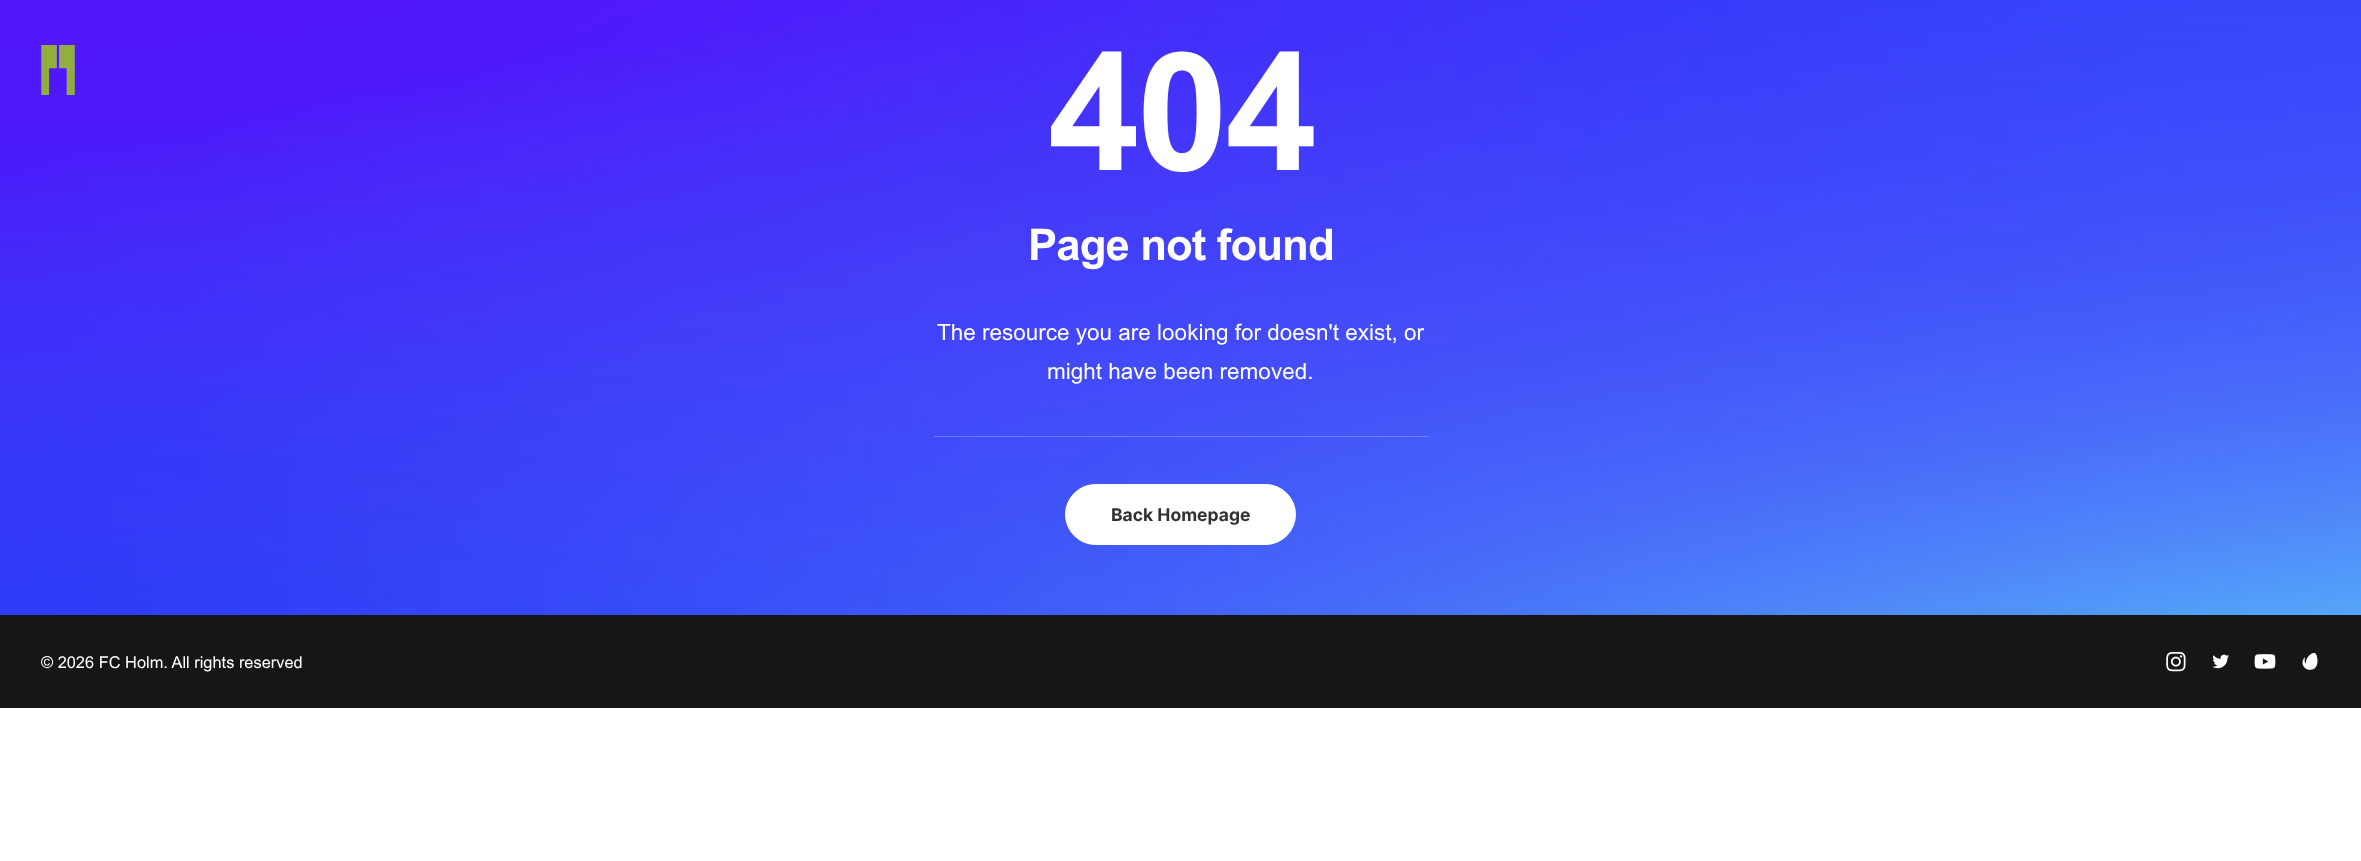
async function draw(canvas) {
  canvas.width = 2361
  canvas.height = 861
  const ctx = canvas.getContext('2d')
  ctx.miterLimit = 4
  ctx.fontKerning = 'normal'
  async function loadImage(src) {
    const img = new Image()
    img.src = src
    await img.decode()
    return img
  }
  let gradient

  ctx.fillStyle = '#fff'
  ctx.fillRect(0, 0, 2361, 861)
  gradient = ctx.createLinearGradient(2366, 308, -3.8, 307)
  gradient.addColorStop(0.09, '#115cfa')
  gradient.addColorStop(0.91, '#053df5')
  ctx.fillStyle = gradient
  ctx.fillRect(0, 0, 2361, 615)
  ctx.drawImage(await loadImage('image1.png'), 0, 0, 2361, 615)
  ctx.drawImage(await loadImage('image0.png'), 41, 45, 34, 50)
  ctx.letterSpacing = '-3px'
  ctx.font = 'bold 165px Arial'
  ctx.fillStyle = '#fff'
  ctx.fillText('404', 1048, 170)
  ctx.letterSpacing = '-0.9px'
  ctx.font = 'bold 43.75px Arial'
  ctx.fillText('Page not found', 1028, 260)
  ctx.letterSpacing = '0px'
  ctx.font = '22.5px Arial'
  ctx.fillText('The resource you are looking for doesn\'t exist, or', 937, 340)
  ctx.fillText('might have been removed.', 1047, 379)
  ctx.fillStyle = '#ffffff40'
  ctx.fillRect(934, 436, 495, 1)
  ctx.fillStyle = '#fff'
  ctx.beginPath()
  ctx.roundRect(1065.5, 484.5, 230, 60, 30)
  ctx.fill()
  ctx.strokeStyle = '#fff'
  ctx.stroke()
  ctx.font = 'bold 17.5px Inter'
  ctx.fillStyle = '#303133'
  ctx.fillText('Back Homepage', 1111, 521)
  ctx.fillStyle = '#141618'
  ctx.fillRect(0, 615, 2361, 93)
  ctx.font = '16.4px Arial'
  ctx.fillStyle = '#fff'
  ctx.fillText('© 2026 FC Holm. All rights reserved', 41, 668)
  ctx.drawImage(await loadImage('image2.png'), 2166, 651, 20, 21)
  ctx.drawImage(await loadImage('image3.png'), 2212, 654, 17, 15)
  ctx.drawImage(await loadImage('image4.png'), 2254, 654, 22, 15)
  ctx.drawImage(await loadImage('image5.png'), 2302, 652, 16, 18)
}

draw(document.querySelector('canvas'))
